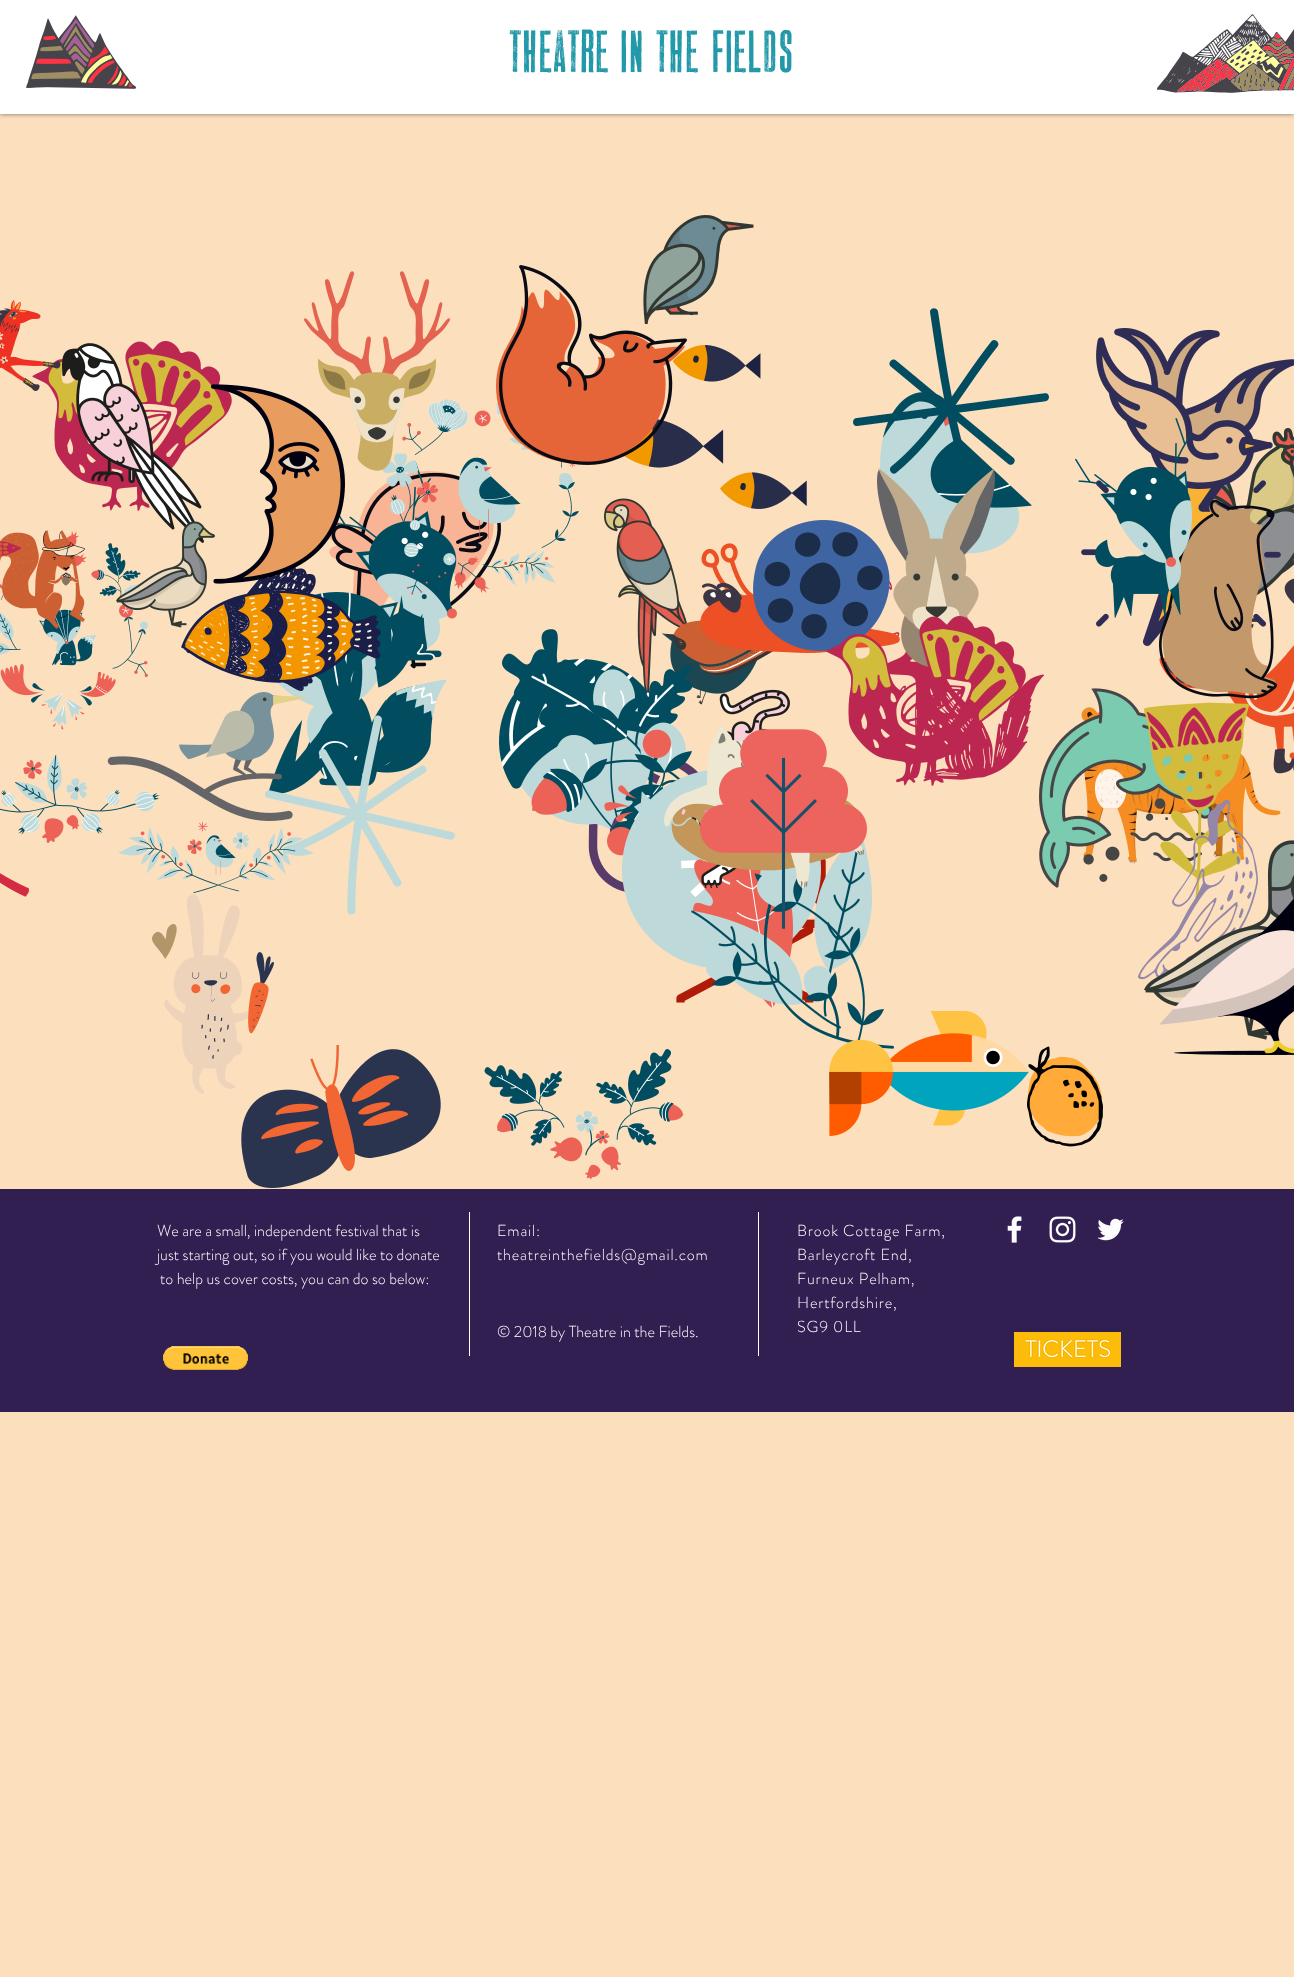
async function draw(canvas) {
  canvas.width = 1294
  canvas.height = 1977
  const ctx = canvas.getContext('2d')
  ctx.miterLimit = 4
  ctx.fontKerning = 'normal'
  async function loadImage(src) {
    const img = new Image()
    img.src = src
    await img.decode()
    return img
  }

  ctx.fillStyle = '#fce0be'
  ctx.fillRect(0, 0, 1294, 1977)
  ctx.fillStyle = '#00000080'
  ctx.filter = 'blur(2.5px)'
  ctx.beginPath()
  ctx.rect(0, 0, 1294, 114)
  ctx.fill()
  ctx.filter = 'none'
  ctx.fillStyle = '#fff'
  ctx.fillRect(0, 0, 1294, 114)
  ctx.drawImage(await loadImage('image0.png'), 26, 15, 110, 74)
  ctx.font = '60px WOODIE'
  ctx.fillStyle = '#2299a9'
  ctx.fillText('THEATRE IN THE FIELDS', 509, 72)
  ctx.drawImage(await loadImage('image1.png'), 1157, 14, 137, 79)
  ctx.drawImage(await loadImage('image3.png'), 32, 341, 200, 170)
  ctx.drawImage(await loadImage('image2.png'), 0, 300, 61, 91)
  ctx.drawImage(await loadImage('image18.png'), 329, 471, 172, 199)
  ctx.drawImage(await loadImage('image16.png'), 336, 461, 121, 200)
  ctx.drawImage(await loadImage('image11.png'), 382, 399, 197, 196)
  ctx.drawImage(await loadImage('image4.png'), 304, 271, 146, 200)
  ctx.drawImage(await loadImage('image12.png'), 621, 345, 186, 164)
  ctx.drawImage(await loadImage('image5.png'), 496, 265, 191, 200)
  ctx.drawImage(await loadImage('image6.png'), 643, 215, 111, 109)
  ctx.drawImage(await loadImage('image13.png'), 880, 392, 152, 162)
  ctx.drawImage(await loadImage('image7.png'), 853, 308, 196, 184)
  ctx.drawImage(await loadImage('image15.png'), 1211, 428, 83, 200)
  ctx.drawImage(await loadImage('image29.png'), 1159, 578, 135, 196)
  ctx.drawImage(await loadImage('image20.png'), 1081, 480, 200, 166)
  ctx.drawImage(await loadImage('image8.png'), 1096, 328, 198, 161)
  ctx.drawImage(await loadImage('image25.png'), 0, 531, 148, 199)
  ctx.drawImage(await loadImage('image9.png'), 62, 343, 142, 200)
  ctx.drawImage(await loadImage('image30.png'), 257, 592, 190, 194)
  ctx.drawImage(await loadImage('image31.png'), 269, 595, 154, 199)
  ctx.drawImage(await loadImage('image27.png'), 181, 567, 200, 124)
  ctx.drawImage(await loadImage('image10.png'), 211, 384, 134, 200)
  ctx.drawImage(await loadImage('image24.png'), 1159, 499, 118, 200)
  ctx.drawImage(await loadImage('image14.png'), 1075, 418, 117, 200)
  ctx.drawImage(await loadImage('image28.png'), 887, 581, 157, 199)
  ctx.drawImage(await loadImage('image17.png'), 877, 468, 118, 199)
  ctx.drawImage(await loadImage('image19.png'), 604, 498, 83, 196)
  ctx.drawImage(await loadImage('image21.png'), 0, 530, 85, 99)
  ctx.drawImage(await loadImage('image22.png'), 116, 521, 99, 107)
  ctx.drawImage(await loadImage('image33.png'), 662, 620, 112, 85)
  ctx.drawImage(await loadImage('image23.png'), 700, 520, 200, 133)
  ctx.drawImage(await loadImage('image26.png'), 0, 541, 22, 15)
  ctx.drawImage(await loadImage('image46.png'), 588, 762, 111, 130)
  ctx.drawImage(await loadImage('image32.png'), 499, 629, 152, 200)
  ctx.drawImage(await loadImage('image35.png'), 502, 649, 191, 182)
  ctx.drawImage(await loadImage('image37.png'), 550, 669, 142, 161)
  ctx.drawImage(await loadImage('image42.png'), 607, 729, 64, 127)
  ctx.drawImage(await loadImage('image50.png'), 604, 785, 47, 38)
  ctx.drawImage(await loadImage('image55.png'), 676, 859, 150, 144)
  ctx.drawImage(await loadImage('image48.png'), 622, 770, 199, 198)
  ctx.drawImage(await loadImage('image51.png'), 693, 824, 40, 98)
  ctx.drawImage(await loadImage('image58.png'), 730, 868, 63, 140)
  ctx.drawImage(await loadImage('image53.png'), 691, 840, 181, 189)
  ctx.drawImage(await loadImage('image56.png'), 706, 866, 188, 183)
  ctx.drawImage(await loadImage('image60.png'), 757, 875, 127, 166)
  ctx.drawImage(await loadImage('image38.png'), 691, 689, 99, 200)
  ctx.drawImage(await loadImage('image43.png'), 664, 727, 200, 161)
  ctx.drawImage(await loadImage('image47.png'), 700, 729, 167, 200)
  ctx.drawImage(await loadImage('image34.png'), 826, 616, 200, 170)
  ctx.drawImage(await loadImage('image41.png'), 265, 715, 190, 200)
  ctx.drawImage(await loadImage('image36.png'), 107, 692, 199, 129)
  ctx.drawImage(await loadImage('image44.png'), 1081, 707, 200, 157)
  ctx.drawImage(await loadImage('image39.png'), 1039, 688, 186, 200)
  ctx.drawImage(await loadImage('image40.png'), 1144, 702, 105, 197)
  ctx.drawImage(await loadImage('image45.png'), 0, 755, 160, 88)
  ctx.drawImage(await loadImage('image49.png'), 118, 822, 196, 71)
  ctx.drawImage(await loadImage('image52.png'), 1138, 800, 120, 180)
  ctx.drawImage(await loadImage('image54.png'), 1144, 840, 150, 200)
  ctx.drawImage(await loadImage('image57.png'), 0, 873, 29, 24)
  ctx.drawImage(await loadImage('image62.png'), 241, 1045, 200, 143)
  ctx.drawImage(await loadImage('image59.png'), 152, 894, 122, 200)
  ctx.drawImage(await loadImage('image61.png'), 1159, 898, 135, 157)
  ctx.drawImage(await loadImage('image63.png'), 484, 1049, 200, 130)
  ctx.drawImage(await loadImage('image64.png'), 829, 1011, 200, 125)
  ctx.drawImage(await loadImage('image65.png'), 1027, 1046, 76, 101)
  ctx.fillStyle = '#311f52'
  ctx.fillRect(0, 1189, 1294, 223)
  ctx.font = '300 16px "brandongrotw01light"'
  ctx.fillStyle = '#fff'
  ctx.fillText('We are a small, independent festival that is', 157, 1236)
  ctx.fillText('just starting out, so if you would like to donate', 157, 1260)
  ctx.fillText('to help us cover costs, you can do so below:', 160, 1284)
  ctx.fillRect(469, 1212, 1, 144)
  ctx.letterSpacing = '0.8px'
  ctx.fillText('Email:', 497, 1236)
  ctx.fillText('theatreinthefields@gmail.com', 497, 1260)
  ctx.fillRect(758, 1212, 1, 144)
  ctx.fillText('Brook Cottage Farm,', 797, 1236)
  ctx.fillText('Barleycroft End,', 797, 1260)
  ctx.fillText('Furneux Pelham,', 797, 1284)
  ctx.fillText('Hertfordshire,', 797, 1308)
  ctx.fillText('SG9 0LL', 797, 1332)
  ctx.drawImage(await loadImage('image66.png'), 1007, 1216, 15, 27)
  ctx.drawImage(await loadImage('image67.png'), 1049, 1216, 27, 27)
  ctx.drawImage(await loadImage('image68.png'), 1097, 1218, 27, 23)
  ctx.drawImage(await loadImage('image69.png'), 163, 1346, 85, 24)
  ctx.letterSpacing = '0px'
  ctx.fillText('© 2018 by Theatre in the Fields', 497, 1337)
  ctx.letterSpacing = '0.8px'
  ctx.fillText('.', 695, 1337)
  ctx.drawImage(await loadImage('image70.png'), 1014, 1332, 107, 35)
}

draw(document.querySelector('canvas'))
